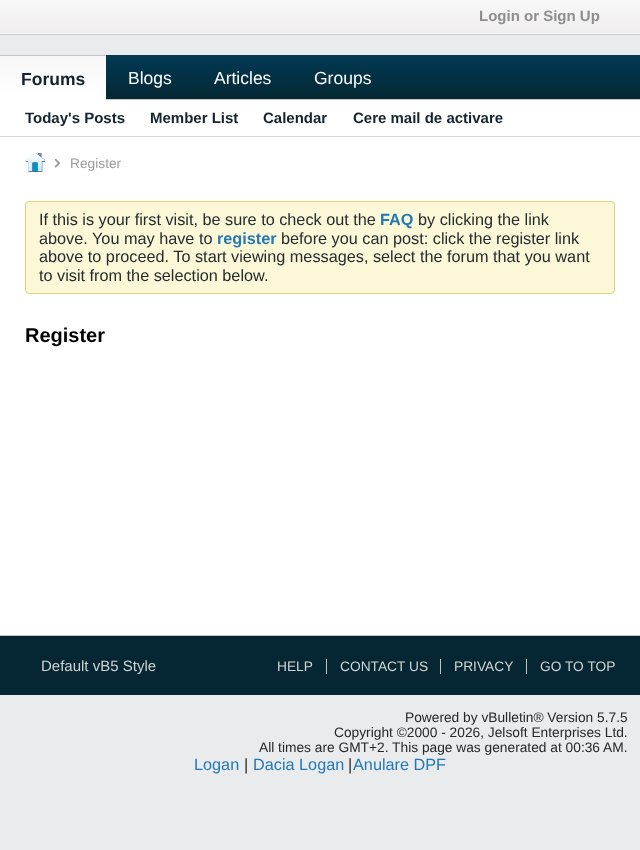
async function draw(canvas) {
  canvas.width = 640
  canvas.height = 850
  const ctx = canvas.getContext('2d')
  ctx.miterLimit = 4
  ctx.fontKerning = 'normal'
  async function loadImage(src) {
    const img = new Image()
    img.src = src
    await img.decode()
    return img
  }
  let gradient

  ctx.fillStyle = '#eaebec'
  ctx.fillRect(0, 0, 640, 850)
  gradient = ctx.createLinearGradient(320, 0, 320, 35)
  gradient.addColorStop(0, '#f8f8f8')
  gradient.addColorStop(1, '#efedee')
  ctx.fillStyle = gradient
  ctx.fillRect(0, 0, 640, 33)
  ctx.font = 'bold 15px Liberation Sans'
  ctx.fillStyle = '#8e8e8e'
  ctx.fillText('Login or Sign Up', 479, 21)
  ctx.fillStyle = '#fafafa'
  ctx.fillRect(0, 33, 640, 1)
  ctx.fillStyle = '#c7c8c9'
  ctx.fillRect(0, 34, 640, 1)
  gradient = ctx.createLinearGradient(320, 55, 320, 99)
  gradient.addColorStop(0, '#013a54')
  gradient.addColorStop(1, '#052733')
  ctx.fillStyle = gradient
  ctx.fillRect(0, 55, 640, 44)
  ctx.fillStyle = '#c4c7c8'
  ctx.fillRect(106, 99, 534, 1)
  gradient = ctx.createLinearGradient(53, 12, 53, 56)
  gradient.addColorStop(0, '#f7f7f7')
  gradient.addColorStop(1, '#fff')
  ctx.fillStyle = gradient
  ctx.beginPath()
  ctx.roundRect(0, 55, 106, 1, [1, 1, 0, 0])
  ctx.fill()
  gradient = ctx.createLinearGradient(53, 56, 53, 100)
  gradient.addColorStop(0, '#f7f7f7')
  gradient.addColorStop(1, '#fff')
  ctx.fillStyle = gradient
  ctx.fillRect(0, 56, 106, 44)
  ctx.fillStyle = '#c4c7c8'
  ctx.fillRect(1, 55, 105, 1)
  ctx.font = 'bold 17.5px Liberation Sans'
  ctx.fillStyle = '#13242f'
  ctx.fillText('Forums', 21, 85)
  ctx.font = '17.5px Liberation Sans'
  ctx.fillStyle = '#fff'
  ctx.fillText('Blogs', 128, 84)
  ctx.fillText('Articles', 214, 84)
  ctx.fillText('Groups', 314, 84)
  ctx.fillRect(0, 100, 640, 535)
  ctx.fillStyle = '#d3d5d6'
  ctx.fillRect(0, 136, 640, 1)
  ctx.font = 'bold 15px Liberation Sans'
  ctx.fillStyle = '#13242f'
  ctx.fillText('Today\'s Posts', 25, 123)
  ctx.fillText('Member List', 150, 123)
  ctx.fillText('Calendar', 263, 123)
  ctx.fillText('Cere mail de activare', 353, 123)
  ctx.drawImage(await loadImage('image0.png'), 25, 153, 20, 19)
  ctx.drawImage(await loadImage('image1.png'), 54, 159, 6, 9)
  ctx.font = '13.75px Liberation Sans'
  ctx.fillStyle = '#9e9d9d'
  ctx.fillText('Register', 70, 168)
  ctx.fillStyle = '#fcf7d7'
  ctx.beginPath()
  ctx.roundRect(25.5, 201.5, 589, 92, 3.5)
  ctx.fill()
  ctx.strokeStyle = '#e1d47e'
  ctx.stroke()
  ctx.font = '16.25px Liberation Sans'
  ctx.fillStyle = '#252c2f'
  ctx.fillText('If this is your first visit, be sure to check out the', 39, 225)
  ctx.font = 'bold 16.25px Liberation Sans'
  ctx.fillStyle = '#2379b5'
  ctx.fillText('FAQ', 380, 225)
  ctx.font = '16.25px Liberation Sans'
  ctx.fillStyle = '#252c2f'
  ctx.fillText('by clicking the link', 418, 225)
  ctx.fillText('above. You may have to', 39, 244)
  ctx.font = 'bold 16.25px Liberation Sans'
  ctx.fillStyle = '#2379b5'
  ctx.fillText('register', 217, 244)
  ctx.font = '16.25px Liberation Sans'
  ctx.fillStyle = '#252c2f'
  ctx.fillText('before you can post: click the register link', 281, 244)
  ctx.fillText('above to proceed. To start viewing messages, select the forum that you want', 39, 262)
  ctx.fillText('to visit from the selection below.', 39, 281)
  ctx.font = 'bold 20px Liberation Sans'
  ctx.fillStyle = '#000'
  ctx.fillText('Register', 25, 342)
  ctx.fillStyle = '#052733'
  ctx.fillRect(0, 636, 640, 59)
  ctx.fillStyle = '#c2c2c2'
  ctx.fillRect(0, 635, 640, 1)
  ctx.font = '15px Liberation Sans'
  ctx.fillStyle = '#d2d2d2'
  ctx.fillText('Default vB5 Style', 41, 671)
  ctx.font = '13.75px Liberation Sans'
  ctx.fillText('HELP', 277, 671)
  ctx.fillText('CONTACT US', 340, 671)
  ctx.fillStyle = '#c2c2c2'
  ctx.fillRect(326, 659, 1, 15)
  ctx.fillStyle = '#d2d2d2'
  ctx.fillText('PRIVACY', 454, 671)
  ctx.fillStyle = '#c2c2c2'
  ctx.fillRect(440, 659, 1, 15)
  ctx.fillStyle = '#d2d2d2'
  ctx.fillText('GO TO TOP', 540, 671)
  ctx.fillStyle = '#c2c2c2'
  ctx.fillRect(526, 659, 1, 15)
  ctx.fillStyle = '#272727'
  ctx.fillText('Powered by vBulletin® Version 5.7.5', 405, 722)
  ctx.fillText('Copyright ©2000 - 2026, Jelsoft Enterprises Ltd.', 334, 737)
  ctx.fillText('All times are GMT+2. This page was generated at 00:36 AM.', 259, 752)
  ctx.font = '16.25px Liberation Sans'
  ctx.fillStyle = '#2379b5'
  ctx.fillText('Logan', 194, 770)
  ctx.fillStyle = '#252c2f'
  ctx.fillText('|', 244, 770)
  ctx.fillStyle = '#2379b5'
  ctx.fillText('Dacia Logan', 253, 770)
  ctx.fillStyle = '#252c2f'
  ctx.fillText('|', 348, 770)
  ctx.fillStyle = '#2379b5'
  ctx.fillText('Anulare DPF', 353, 770)
}

draw(document.querySelector('canvas'))
